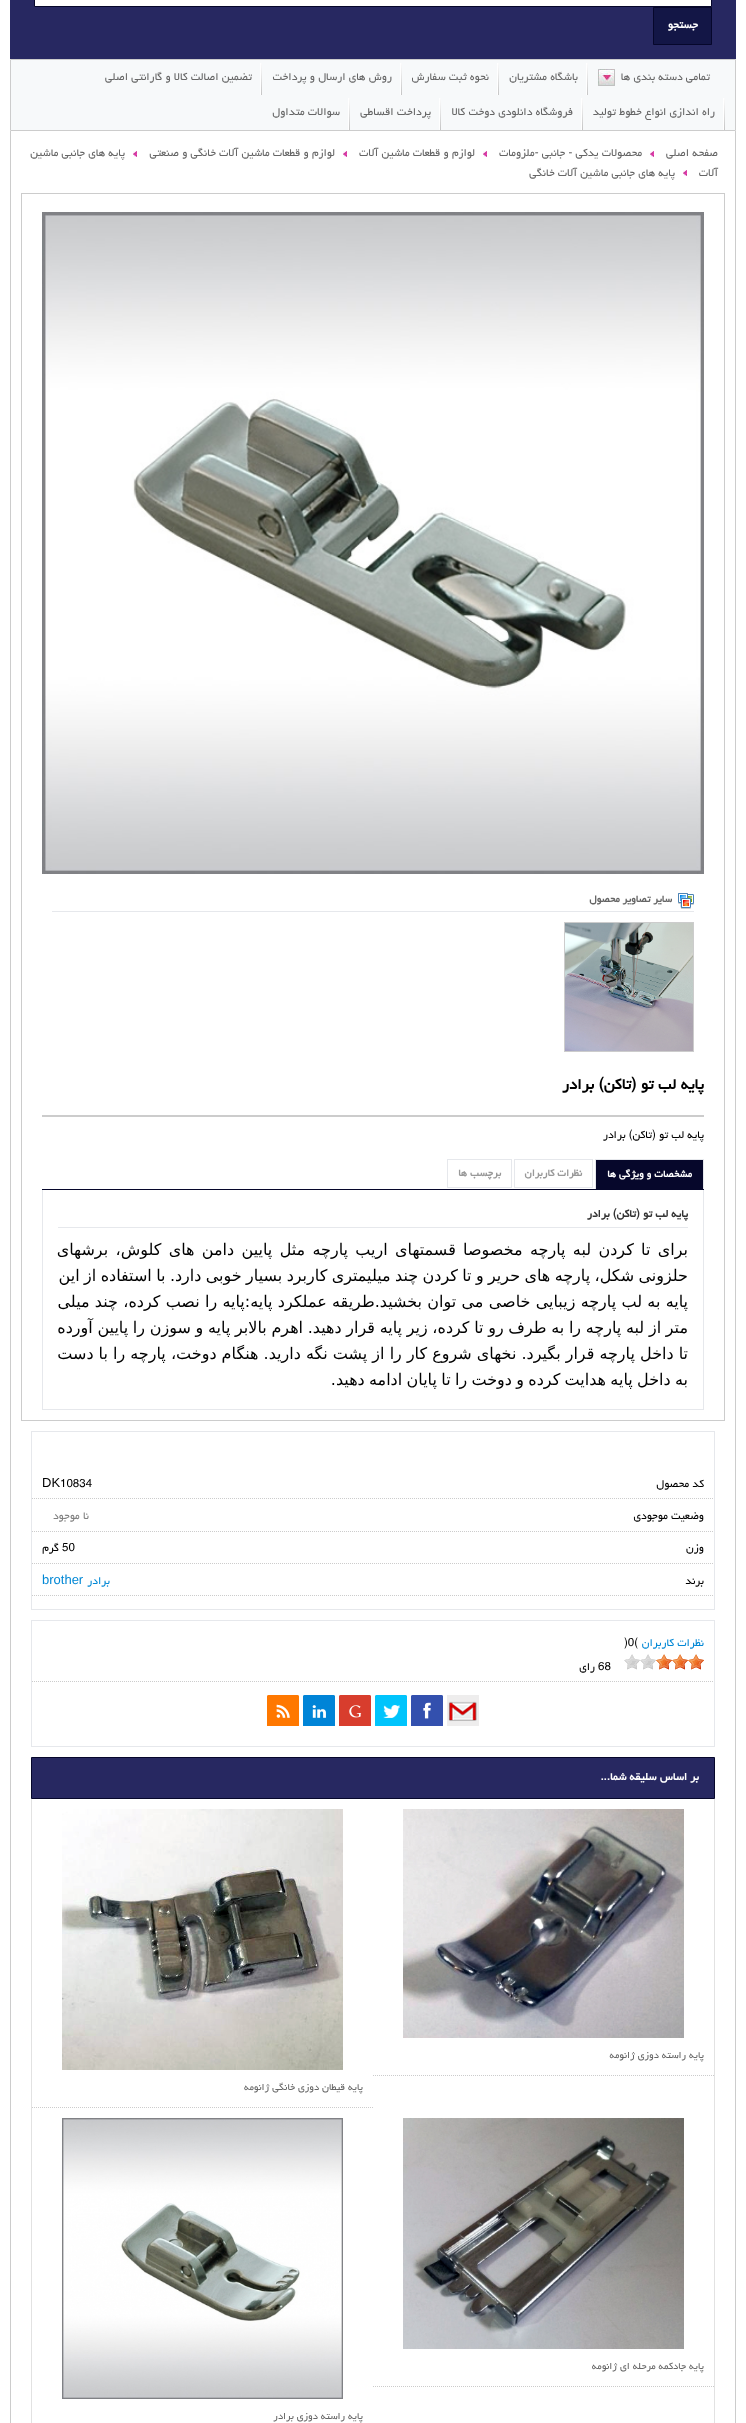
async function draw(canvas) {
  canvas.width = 746
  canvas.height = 2423
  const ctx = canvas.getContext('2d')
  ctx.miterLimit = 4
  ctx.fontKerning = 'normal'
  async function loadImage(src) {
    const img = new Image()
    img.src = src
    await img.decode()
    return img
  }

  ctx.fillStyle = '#fff'
  ctx.fillRect(0, 0, 746, 2423)
  ctx.fillStyle = '#272861'
  ctx.fillRect(10, 0, 726, 59)
  ctx.fillStyle = '#fff'
  ctx.beginPath()
  ctx.rect(34.5, -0.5, 677, 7)
  ctx.fill()
  ctx.strokeStyle = '#06072b'
  ctx.stroke()
  ctx.fillStyle = '#131646'
  ctx.beginPath()
  ctx.rect(653.5, 7.5, 58, 37)
  ctx.fill()
  ctx.stroke()
  ctx.direction = 'rtl'
  ctx.font = 'bold 13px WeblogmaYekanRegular'
  ctx.fillStyle = '#fff'
  ctx.fillText('جستجو', 698, 28)
  ctx.fillStyle = '#f7f9fa'
  ctx.beginPath()
  ctx.rect(10.5, 59.5, 725, 71)
  ctx.fill()
  ctx.strokeStyle = '#ccc'
  ctx.stroke()
  ctx.drawImage(await loadImage('image0.png'), 586, 63, 2, 32)
  ctx.font = '13px WeblogmaYekanRegular'
  ctx.fillStyle = '#666'
  ctx.fillText('باشگاه مشتریان', 578, 80)
  ctx.drawImage(await loadImage('image0.png'), 497, 63, 2, 32)
  ctx.fillText('نحوه ثبت سفارش', 489, 80)
  ctx.drawImage(await loadImage('image0.png'), 400, 63, 2, 32)
  ctx.fillText('روش های ارسال و پرداخت', 392, 80)
  ctx.drawImage(await loadImage('image0.png'), 260, 63, 2, 32)
  ctx.fillText('تضمین اصالت کالا و گارانتی اصلی', 252, 80)
  ctx.drawImage(await loadImage('image0.png'), 723, 98, 2, 32)
  ctx.fillText('راه اندازی انواع خطوط تولید', 715, 115)
  ctx.drawImage(await loadImage('image0.png'), 581, 98, 2, 32)
  ctx.fillText('فروشگاه دانلودی دوخت کالا', 573, 115)
  ctx.drawImage(await loadImage('image0.png'), 439, 98, 2, 32)
  ctx.fillText('پرداخت اقساطی', 431, 115)
  ctx.drawImage(await loadImage('image0.png'), 348, 98, 2, 32)
  ctx.fillText('سوالات متداول', 340, 115)
  ctx.drawImage(await loadImage('image1.png'), 598, 69, 17, 17)
  ctx.fillText('تمامی دسته بندی ها', 710, 80)
  ctx.fillStyle = '#ccc'
  ctx.fillRect(735, 131, 1, 2292)
  ctx.fillRect(10, 131, 1, 2292)
  ctx.fillStyle = '#666'
  ctx.fillText('صفحه اصلی', 718, 156)
  ctx.drawImage(await loadImage('image2.png'), 650, 151, 4, 6)
  ctx.fillText('محصولات یدکی - جانبی -ملزومات', 642, 156)
  ctx.drawImage(await loadImage('image2.png'), 483, 151, 4, 6)
  ctx.fillText('لوازم و قطعات ماشین آلات', 475, 156)
  ctx.drawImage(await loadImage('image2.png'), 343, 151, 4, 6)
  ctx.fillText('لوازم و قطعات ماشین آلات خانگی و صنعتی', 335, 156)
  ctx.drawImage(await loadImage('image2.png'), 133, 151, 4, 6)
  ctx.fillText('پایه های جانبی ماشین', 125, 156)
  ctx.fillText('آلات', 718, 176)
  ctx.drawImage(await loadImage('image2.png'), 683, 170, 4, 6)
  ctx.fillText('پایه های جانبی ماشین آلات خانگی', 675, 176)
  ctx.strokeRect(21.5, 193.5, 703, 1227)
  ctx.drawImage(await loadImage('image3.png'), 42, 212, 662, 662)
  ctx.drawImage(await loadImage('image4.png'), 678, 893, 16, 16)
  ctx.fillStyle = '#e6e8ec'
  ctx.fillRect(52, 911, 642, 1)
  ctx.font = 'bold 12px WeblogmaYekanRegular'
  ctx.fillStyle = '#666'
  ctx.fillText('سایر تصاویر محصول', 672, 902)
  ctx.strokeRect(564.5, 922.5, 129, 129)
  ctx.drawImage(await loadImage('image5.png'), 565, 923, 128, 128)
  ctx.fillStyle = '#ccc'
  ctx.fillRect(42, 1115, 662, 2)
  ctx.font = 'bold 18.25px WeblogmaYekanRegular'
  ctx.fillStyle = '#000'
  ctx.fillText('پایه لب تو (تاكن) برادر', 704, 1089)
  ctx.font = '13px WeblogmaYekanRegular'
  ctx.fillText('پایه لب تو (تاكن) برادر', 704, 1138)
  ctx.fillStyle = '#06072b'
  ctx.fillRect(42, 1189, 662, 1)
  ctx.strokeStyle = '#e6e8ec'
  ctx.strokeRect(595.5, 1159.5, 108, 29)
  ctx.fillRect(596, 1160, 107, 29)
  ctx.font = 'bold 12px WeblogmaYekanRegular'
  ctx.fillStyle = '#fff'
  ctx.fillText('مشخصات و ویژگی ها', 692, 1177)
  ctx.strokeRect(514.5, 1159.5, 78, 28)
  ctx.fillStyle = '#999'
  ctx.fillText('نظرات کاربران', 582, 1176)
  ctx.strokeRect(447.5, 1159.5, 64, 28)
  ctx.fillText('برچسب ها', 501, 1176)
  ctx.fillStyle = '#e6e8ec'
  ctx.fillRect(703, 1190, 1, 220)
  ctx.fillRect(42, 1409, 662, 1)
  ctx.fillRect(42, 1190, 1, 220)
  ctx.fillRect(58, 1227, 630, 1)
  ctx.font = 'bold 13px WeblogmaYekanRegular'
  ctx.fillStyle = '#333'
  ctx.fillText('پایه لب تو (تاكن) برادر', 688, 1217)
  ctx.wordSpacing = '2.25px'
  ctx.font = '16px DejaVu Sans'
  ctx.fillStyle = '#000'
  ctx.fillText('برای تا کردن لبه پارچه مخصوصا قسمتهای اریب پارچه مثل پایین دامن های کلوش، برشهای', 688, 1255)
  ctx.wordSpacing = '-0.7px'
  ctx.fillText('حلزونی شکل، پارچه های حریر و تا کردن چند میلیمتری کاربرد بسیار خوبی دارد. با استفاده از این', 688, 1281)
  ctx.wordSpacing = '0.2px'
  ctx.fillText('پایه به لب پارچه زیبایی خاصی می توان بخشید.طریقه عملکرد پایه:پایه را نصب کرده، چند میلی', 688, 1307)
  ctx.wordSpacing = '-0.4px'
  ctx.fillText('متر از لبه پارچه را به طرف رو تا کرده، زیر پایه قرار دهید. اهرم بالابر پایه و سوزن را پایین آورده', 688, 1333)
  ctx.wordSpacing = '0px'
  ctx.fillText('تا داخل پارچه قرار بگیرد. نخهای شروع کار را از پشت نگه دارید. هنگام دوخت، پارچه را با دست', 688, 1359)
  ctx.wordSpacing = '-0.75px'
  ctx.fillText('به داخل پایه هدایت کرده و دوخت را تا پایان ادامه دهید.', 688, 1385)
  ctx.strokeRect(31.5, 1431.5, 683, 178)
  ctx.beginPath()
  ctx.moveTo(32, 1498.5)
  ctx.lineTo(714, 1498.5)
  ctx.strokeStyle = '#ccc'
  ctx.setLineDash([1, 1])
  ctx.stroke()
  ctx.wordSpacing = '0px'
  ctx.font = '13px WeblogmaYekanRegular'
  ctx.fillText('کد محصول', 704, 1487)
  ctx.direction = 'ltr'
  ctx.fillText('10834', 60, 1487)
  ctx.font = '13px Liberation Sans'
  ctx.fillText('DK', 42, 1487)
  ctx.beginPath()
  ctx.moveTo(32, 1531.5)
  ctx.lineTo(714, 1531.5)
  ctx.stroke()
  ctx.direction = 'rtl'
  ctx.font = '13px WeblogmaYekanRegular'
  ctx.fillText('وضعیت موجودی', 704, 1519)
  ctx.fillStyle = '#808080'
  ctx.fillText('نا موجود', 89, 1519)
  ctx.beginPath()
  ctx.moveTo(32, 1563.5)
  ctx.lineTo(714, 1563.5)
  ctx.stroke()
  ctx.fillStyle = '#000'
  ctx.fillText('وزن', 704, 1551)
  ctx.direction = 'ltr'
  ctx.fillText('50', 62, 1551)
  ctx.direction = 'rtl'
  ctx.fillText('گرم', 59, 1551)
  ctx.beginPath()
  ctx.moveTo(32, 1595.5)
  ctx.lineTo(714, 1595.5)
  ctx.stroke()
  ctx.fillText('برند', 704, 1584)
  ctx.fillStyle = '#0087d5'
  ctx.fillText('برادر', 110, 1584)
  ctx.direction = 'ltr'
  ctx.font = '13px Liberation Sans'
  ctx.fillText('brother', 42, 1584)
  ctx.strokeStyle = '#e6e8ec'
  ctx.setLineDash([])
  ctx.strokeRect(31.5, 1620.5, 683, 126)
  ctx.direction = 'rtl'
  ctx.font = '13px WeblogmaYekanRegular'
  ctx.fillText('نظرات کاربران', 704, 1646)
  ctx.direction = 'ltr'
  ctx.fillStyle = '#000'
  ctx.fillText(')0(', 624, 1646)
  ctx.drawImage(await loadImage('image6.png'), 624, 1654, 32, 16)
  ctx.drawImage(await loadImage('image7.png'), 656, 1654, 48, 16)
  ctx.fillText('68', 598, 1670)
  ctx.direction = 'rtl'
  ctx.fillText('رای', 595, 1670)
  ctx.beginPath()
  ctx.moveTo(32, 1681.5)
  ctx.lineTo(714, 1681.5)
  ctx.strokeStyle = '#ccc'
  ctx.setLineDash([1, 1])
  ctx.stroke()
  ctx.drawImage(await loadImage('image8.png'), 447, 1695, 32, 31)
  ctx.drawImage(await loadImage('image9.png'), 411, 1695, 32, 31)
  ctx.drawImage(await loadImage('image10.png'), 375, 1695, 32, 31)
  ctx.drawImage(await loadImage('image11.png'), 339, 1695, 32, 31)
  ctx.drawImage(await loadImage('image12.png'), 303, 1695, 32, 31)
  ctx.drawImage(await loadImage('image13.png'), 267, 1695, 32, 31)
  ctx.fillStyle = '#272861'
  ctx.beginPath()
  ctx.rect(31.5, 1757.5, 683, 41)
  ctx.fill()
  ctx.strokeStyle = '#06072b'
  ctx.setLineDash([])
  ctx.stroke()
  ctx.font = 'bold 13px WeblogmaYekanRegular'
  ctx.fillStyle = '#fff'
  ctx.fillText('بر اساس سلیقه شما...', 699, 1780)
  ctx.fillStyle = '#e2e2e2'
  ctx.fillRect(714, 1799, 1, 624)
  ctx.fillRect(31, 1799, 1, 624)
  ctx.beginPath()
  ctx.moveTo(373, 2075.5)
  ctx.lineTo(714, 2075.5)
  ctx.strokeStyle = '#ccc'
  ctx.setLineDash([1, 1])
  ctx.stroke()
  ctx.drawImage(await loadImage('image14.png'), 403, 1809, 281, 229)
  ctx.font = '11.75px WeblogmaYekanRegular'
  ctx.fillStyle = '#666'
  ctx.fillText('پایه راسته دوزی ژانومه', 704, 2058)
  ctx.beginPath()
  ctx.moveTo(32, 2107.5)
  ctx.lineTo(373, 2107.5)
  ctx.stroke()
  ctx.drawImage(await loadImage('image15.png'), 62, 1809, 281, 261)
  ctx.fillText('پایه قیطان دوزی خانگی ژانومه', 363, 2090)
  ctx.beginPath()
  ctx.moveTo(373, 2386.5)
  ctx.lineTo(714, 2386.5)
  ctx.stroke()
  ctx.drawImage(await loadImage('image16.png'), 403, 2118, 281, 231)
  ctx.fillText('پایه جادکمه مرحله ای ژانومه', 704, 2369)
  ctx.drawImage(await loadImage('image17.png'), 62, 2118, 281, 281)
  ctx.fillText('پایه راسته دوزی برادر', 363, 2419)
}

draw(document.querySelector('canvas'))
